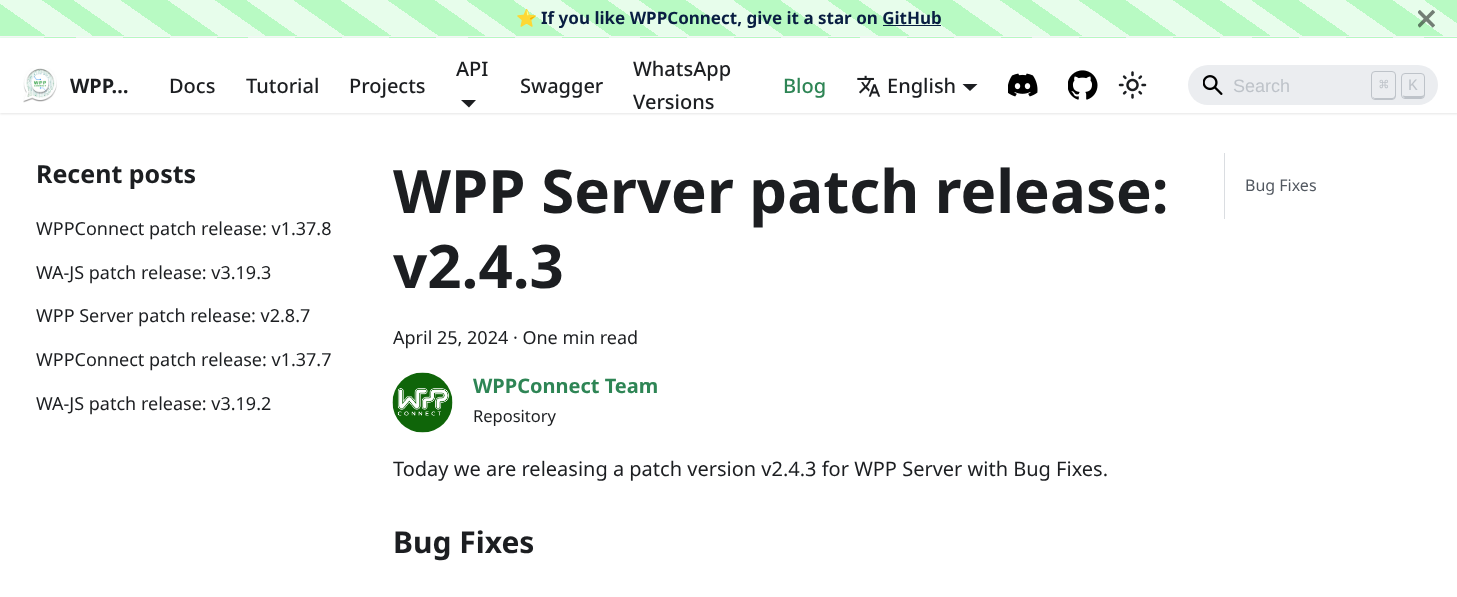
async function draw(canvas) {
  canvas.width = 1457
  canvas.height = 597
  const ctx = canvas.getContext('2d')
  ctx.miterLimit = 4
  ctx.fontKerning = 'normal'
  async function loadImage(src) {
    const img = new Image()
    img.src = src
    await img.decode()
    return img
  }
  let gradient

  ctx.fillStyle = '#fff'
  ctx.fillRect(0, 0, 1457, 597)
  gradient = ctx.createLinearGradient(480, 373, 997, -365)
  gradient.addColorStop(0, '#b8fac3')
  gradient.addColorStop(0.03, '#b8fac3')
  gradient.addColorStop(0.03, '#e7fdeb')
  gradient.addColorStop(0.06, '#e7fdeb')
  gradient.addColorStop(0.06, '#b8fac3')
  gradient.addColorStop(0.08, '#b8fac3')
  gradient.addColorStop(0.08, '#e7fdeb')
  gradient.addColorStop(0.11, '#e7fdeb')
  gradient.addColorStop(0.11, '#b8fac3')
  gradient.addColorStop(0.14, '#b8fac3')
  gradient.addColorStop(0.14, '#e7fdeb')
  gradient.addColorStop(0.17, '#e7fdeb')
  gradient.addColorStop(0.17, '#b8fac3')
  gradient.addColorStop(0.19, '#b8fac3')
  gradient.addColorStop(0.19, '#e7fdeb')
  gradient.addColorStop(0.22, '#e7fdeb')
  gradient.addColorStop(0.22, '#b8fac3')
  gradient.addColorStop(0.25, '#b8fac3')
  gradient.addColorStop(0.25, '#e7fdeb')
  gradient.addColorStop(0.28, '#e7fdeb')
  gradient.addColorStop(0.28, '#b8fac3')
  gradient.addColorStop(0.31, '#b8fac3')
  gradient.addColorStop(0.31, '#e7fdeb')
  gradient.addColorStop(0.33, '#e7fdeb')
  gradient.addColorStop(0.33, '#b8fac3')
  gradient.addColorStop(0.36, '#b8fac3')
  gradient.addColorStop(0.36, '#e7fdeb')
  gradient.addColorStop(0.39, '#e7fdeb')
  gradient.addColorStop(0.39, '#b8fac3')
  gradient.addColorStop(0.42, '#b8fac3')
  gradient.addColorStop(0.42, '#e7fdeb')
  gradient.addColorStop(0.44, '#e7fdeb')
  gradient.addColorStop(0.44, '#b8fac3')
  gradient.addColorStop(0.47, '#b8fac3')
  gradient.addColorStop(0.47, '#e7fdeb')
  gradient.addColorStop(0.5, '#e7fdeb')
  gradient.addColorStop(0.5, '#b8fac3')
  gradient.addColorStop(0.53, '#b8fac3')
  gradient.addColorStop(0.53, '#e7fdeb')
  gradient.addColorStop(0.56, '#e7fdeb')
  gradient.addColorStop(0.56, '#b8fac3')
  gradient.addColorStop(0.58, '#b8fac3')
  gradient.addColorStop(0.58, '#e7fdeb')
  gradient.addColorStop(0.61, '#e7fdeb')
  gradient.addColorStop(0.61, '#b8fac3')
  gradient.addColorStop(0.64, '#b8fac3')
  gradient.addColorStop(0.64, '#e7fdeb')
  gradient.addColorStop(0.67, '#e7fdeb')
  gradient.addColorStop(0.67, '#b8fac3')
  gradient.addColorStop(0.69, '#b8fac3')
  gradient.addColorStop(0.69, '#e7fdeb')
  gradient.addColorStop(0.72, '#e7fdeb')
  gradient.addColorStop(0.72, '#b8fac3')
  gradient.addColorStop(0.75, '#b8fac3')
  gradient.addColorStop(0.75, '#e7fdeb')
  gradient.addColorStop(0.78, '#e7fdeb')
  gradient.addColorStop(0.78, '#b8fac3')
  gradient.addColorStop(0.81, '#b8fac3')
  gradient.addColorStop(0.81, '#e7fdeb')
  gradient.addColorStop(0.83, '#e7fdeb')
  gradient.addColorStop(0.83, '#b8fac3')
  gradient.addColorStop(0.86, '#b8fac3')
  gradient.addColorStop(0.86, '#e7fdeb')
  gradient.addColorStop(0.89, '#e7fdeb')
  gradient.addColorStop(0.89, '#b8fac3')
  gradient.addColorStop(0.92, '#b8fac3')
  gradient.addColorStop(0.92, '#e7fdeb')
  gradient.addColorStop(0.94, '#e7fdeb')
  gradient.addColorStop(0.94, '#b8fac3')
  gradient.addColorStop(0.97, '#b8fac3')
  gradient.addColorStop(0.97, '#e7fdeb')
  gradient.addColorStop(1, '#e7fdeb')
  ctx.fillStyle = gradient
  ctx.fillRect(0, 0, 1457, 36)
  gradient = ctx.createLinearGradient(480, 409, 997, -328)
  gradient.addColorStop(0, '#b8fac3')
  gradient.addColorStop(0.03, '#b8fac3')
  gradient.addColorStop(0.03, '#e7fdeb')
  gradient.addColorStop(0.06, '#e7fdeb')
  gradient.addColorStop(0.06, '#b8fac3')
  gradient.addColorStop(0.08, '#b8fac3')
  gradient.addColorStop(0.08, '#e7fdeb')
  gradient.addColorStop(0.11, '#e7fdeb')
  gradient.addColorStop(0.11, '#b8fac3')
  gradient.addColorStop(0.14, '#b8fac3')
  gradient.addColorStop(0.14, '#e7fdeb')
  gradient.addColorStop(0.17, '#e7fdeb')
  gradient.addColorStop(0.17, '#b8fac3')
  gradient.addColorStop(0.19, '#b8fac3')
  gradient.addColorStop(0.19, '#e7fdeb')
  gradient.addColorStop(0.22, '#e7fdeb')
  gradient.addColorStop(0.22, '#b8fac3')
  gradient.addColorStop(0.25, '#b8fac3')
  gradient.addColorStop(0.25, '#e7fdeb')
  gradient.addColorStop(0.28, '#e7fdeb')
  gradient.addColorStop(0.28, '#b8fac3')
  gradient.addColorStop(0.31, '#b8fac3')
  gradient.addColorStop(0.31, '#e7fdeb')
  gradient.addColorStop(0.33, '#e7fdeb')
  gradient.addColorStop(0.33, '#b8fac3')
  gradient.addColorStop(0.36, '#b8fac3')
  gradient.addColorStop(0.36, '#e7fdeb')
  gradient.addColorStop(0.39, '#e7fdeb')
  gradient.addColorStop(0.39, '#b8fac3')
  gradient.addColorStop(0.42, '#b8fac3')
  gradient.addColorStop(0.42, '#e7fdeb')
  gradient.addColorStop(0.44, '#e7fdeb')
  gradient.addColorStop(0.44, '#b8fac3')
  gradient.addColorStop(0.47, '#b8fac3')
  gradient.addColorStop(0.47, '#e7fdeb')
  gradient.addColorStop(0.5, '#e7fdeb')
  gradient.addColorStop(0.5, '#b8fac3')
  gradient.addColorStop(0.53, '#b8fac3')
  gradient.addColorStop(0.53, '#e7fdeb')
  gradient.addColorStop(0.56, '#e7fdeb')
  gradient.addColorStop(0.56, '#b8fac3')
  gradient.addColorStop(0.58, '#b8fac3')
  gradient.addColorStop(0.58, '#e7fdeb')
  gradient.addColorStop(0.61, '#e7fdeb')
  gradient.addColorStop(0.61, '#b8fac3')
  gradient.addColorStop(0.64, '#b8fac3')
  gradient.addColorStop(0.64, '#e7fdeb')
  gradient.addColorStop(0.67, '#e7fdeb')
  gradient.addColorStop(0.67, '#b8fac3')
  gradient.addColorStop(0.69, '#b8fac3')
  gradient.addColorStop(0.69, '#e7fdeb')
  gradient.addColorStop(0.72, '#e7fdeb')
  gradient.addColorStop(0.72, '#b8fac3')
  gradient.addColorStop(0.75, '#b8fac3')
  gradient.addColorStop(0.75, '#e7fdeb')
  gradient.addColorStop(0.78, '#e7fdeb')
  gradient.addColorStop(0.78, '#b8fac3')
  gradient.addColorStop(0.81, '#b8fac3')
  gradient.addColorStop(0.81, '#e7fdeb')
  gradient.addColorStop(0.83, '#e7fdeb')
  gradient.addColorStop(0.83, '#b8fac3')
  gradient.addColorStop(0.86, '#b8fac3')
  gradient.addColorStop(0.86, '#e7fdeb')
  gradient.addColorStop(0.89, '#e7fdeb')
  gradient.addColorStop(0.89, '#b8fac3')
  gradient.addColorStop(0.92, '#b8fac3')
  gradient.addColorStop(0.92, '#e7fdeb')
  gradient.addColorStop(0.94, '#e7fdeb')
  gradient.addColorStop(0.94, '#b8fac3')
  gradient.addColorStop(0.97, '#b8fac3')
  gradient.addColorStop(0.97, '#e7fdeb')
  gradient.addColorStop(1, '#e7fdeb')
  ctx.fillStyle = gradient
  ctx.fillRect(0, 37, 1457, 1)
  ctx.fillStyle = '#f5f6f7'
  ctx.fillRect(0, 36, 1457, 1)
  ctx.font = 'bold 17px Noto Color Emoji'
  ctx.fillStyle = '#091e42'
  ctx.fillText('⭐️', 516, 24)
  ctx.font = 'bold 17px Noto Sans'
  ctx.fillText('If you like WPPConnect, give it a star on GitHub', 541, 24)
  ctx.fillRect(883, 25, 58, 1)
  ctx.save()
  ctx.beginPath()
  ctx.rect(1418, 10, 17, 18)
  ctx.clip()
  ctx.beginPath()
  ctx.moveTo(1418.5, 11)
  ctx.lineTo(1434, 26.5)
  ctx.moveTo(1434, 11)
  ctx.lineTo(1418.5, 26.5)
  ctx.strokeStyle = '#00000080'
  ctx.lineWidth = 3.6
  ctx.stroke()
  ctx.restore()
  ctx.fillStyle = '#0000001a'
  ctx.filter = 'blur(1px)'
  ctx.beginPath()
  ctx.rect(0, 39, 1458, 75)
  ctx.fill()
  ctx.filter = 'none'
  ctx.fillStyle = '#fff'
  ctx.fillRect(0, 38, 1457, 75)
  ctx.font = '500 20px Noto Sans'
  ctx.fillStyle = '#1c1e21'
  ctx.fillText('API', 456, 76)
  ctx.beginPath()
  ctx.moveTo(461, 100)
  ctx.lineTo(476, 100)
  ctx.lineTo(469, 107.5)
  ctx.closePath()
  ctx.fill()
  ctx.fillText('WhatsApp', 633, 76)
  ctx.fillText('Versions', 633, 109)
  ctx.drawImage(await loadImage('image0.png'), 23, 68, 34, 35)
  ctx.font = 'bold 20px Noto Sans'
  ctx.fillText('WPP…', 70, 93)
  ctx.font = '500 20px Noto Sans'
  ctx.fillText('Docs', 169, 93)
  ctx.fillText('Tutorial', 246, 93)
  ctx.fillText('Projects', 349, 93)
  ctx.fillText('Swagger', 520, 93)
  ctx.fillStyle = '#2e8555'
  ctx.fillText('Blog', 783, 93)
  ctx.drawImage(await loadImage('image1.png'), 857, 75, 24, 22)
  ctx.fillStyle = '#1c1e21'
  ctx.fillText('English', 887, 93)
  ctx.beginPath()
  ctx.moveTo(962.5, 84)
  ctx.lineTo(977.5, 84)
  ctx.lineTo(970, 91)
  ctx.closePath()
  ctx.fill()
  ctx.drawImage(await loadImage('image2.png'), 1008, 73, 30, 24)
  ctx.drawImage(await loadImage('image3.png'), 1068, 70, 30, 30)
  ctx.drawImage(await loadImage('image4.png'), 1118, 71, 29, 28)
  ctx.fillStyle = '#ebedf0'
  ctx.beginPath()
  ctx.roundRect(1188, 65, 250, 40, 20)
  ctx.fill()
  ctx.drawImage(await loadImage('image5.png'), 1203, 75, 20, 20)
  ctx.font = '18px Liberation Sans'
  ctx.fillStyle = '#bec3c9'
  ctx.fillText('Search', 1233, 92)
  ctx.beginPath()
  ctx.moveTo(1373, 97)
  ctx.bezierCurveTo(1373, 98, 1374, 99, 1375.5, 99)
  ctx.lineTo(1392.5, 99)
  ctx.bezierCurveTo(1394, 99, 1395, 98, 1395, 96.5)
  ctx.lineTo(1395, 95)
  ctx.bezierCurveTo(1395, 96, 1394, 98, 1392, 98)
  ctx.lineTo(1375, 98)
  ctx.bezierCurveTo(1374.5, 98, 1373.5, 97.5, 1373, 97)
  ctx.closePath()
  ctx.fill()
  ctx.beginPath()
  ctx.roundRect(1371.5, 71.5, 24, 28, 3.5)
  ctx.strokeStyle = '#bec3c9'
  ctx.stroke()
  ctx.font = '16px DejaVu Sans Mono'
  ctx.fillText('⌘', 1379, 90)
  ctx.beginPath()
  ctx.moveTo(1403, 95.5)
  ctx.bezierCurveTo(1403, 98.5, 1406, 98, 1408, 98)
  ctx.lineTo(1419, 98)
  ctx.bezierCurveTo(1422.5, 98, 1424, 98, 1424, 94)
  ctx.bezierCurveTo(1424, 95, 1423, 96, 1421, 96)
  ctx.lineTo(1405, 96)
  ctx.closePath()
  ctx.fill()
  ctx.beginPath()
  ctx.roundRect(1401.5, 73.5, 23, 25, 3.5)
  ctx.stroke()
  ctx.font = '16px Liberation Mono'
  ctx.fillText('K', 1408, 90)
  ctx.font = 'bold 25px Noto Sans'
  ctx.fillStyle = '#1c1e21'
  ctx.fillText('Recent posts', 36, 183)
  ctx.font = '18px Noto Sans'
  ctx.fillText('WPPConnect patch release: v1.37.8', 36, 235)
  ctx.fillText('WA-JS patch release: v3.19.3', 36, 279)
  ctx.fillText('WPP Server patch release: v2.8.7', 36, 322)
  ctx.fillText('WPPConnect patch release: v1.37.7', 36, 366)
  ctx.fillText('WA-JS patch release: v3.19.2', 36, 410)
  ctx.font = 'bold 60px Noto Sans'
  ctx.fillText('WPP Server patch release:', 393, 213)
  ctx.fillText('v2.4.3', 393, 288)
  ctx.font = '18px Noto Sans'
  ctx.fillText('April 25, 2024 · One min read', 393, 344)
  ctx.drawImage(await loadImage('image6.png'), 392, 372, 61, 61)
  ctx.font = 'bold 20px Noto Sans'
  ctx.fillStyle = '#2e8555'
  ctx.fillText('WPPConnect Team', 473, 393)
  ctx.font = '16.5px Noto Sans'
  ctx.fillStyle = '#1c1e21'
  ctx.fillText('Repository', 473, 422)
  ctx.font = '20px Noto Sans'
  ctx.fillText('Today we are releasing a patch version v2.4.3 for WPP Server with Bug Fixes.', 393, 476)
  ctx.font = 'bold 30px Noto Sans'
  ctx.fillText('Bug Fixes', 393, 553)
  ctx.fillStyle = '#dadde1'
  ctx.fillRect(1224, 153, 1, 66)
  ctx.font = '16px Noto Sans'
  ctx.fillStyle = '#525860'
  ctx.fillText('Bug Fixes', 1245, 191)
}

draw(document.querySelector('canvas'))
